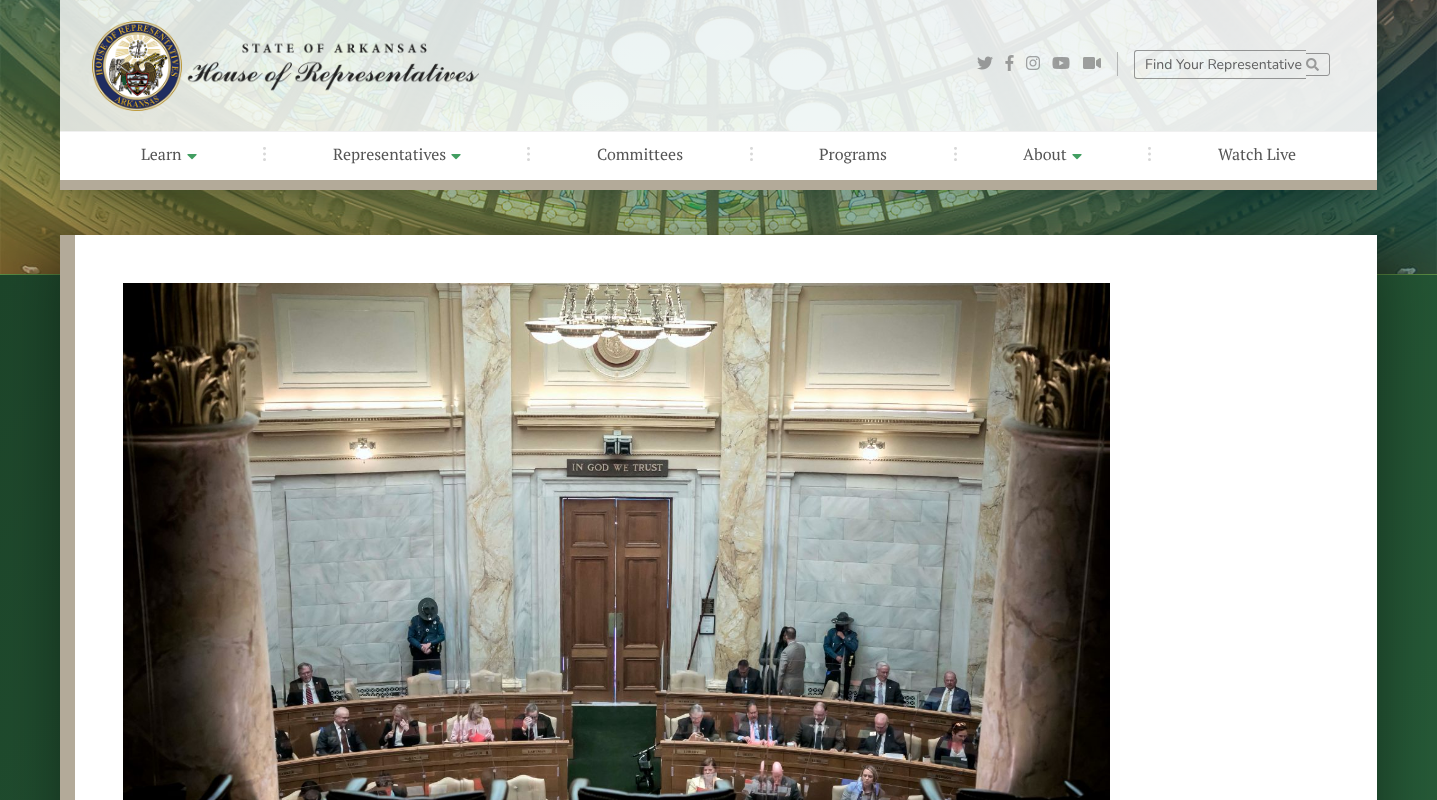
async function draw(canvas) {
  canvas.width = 1437
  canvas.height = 800
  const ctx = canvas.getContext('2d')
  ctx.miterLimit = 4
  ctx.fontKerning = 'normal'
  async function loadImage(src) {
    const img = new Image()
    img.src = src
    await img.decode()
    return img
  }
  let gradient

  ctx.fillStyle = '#fff'
  ctx.fillRect(0, 0, 1437, 800)
  ctx.drawImage(await loadImage('image0.png'), 0, 0, 1437, 274)
  ctx.fillStyle = '#6ba651'
  ctx.fillRect(0, 274, 1437, 1)
  ctx.fillStyle = '#000000b3'
  ctx.filter = 'blur(50px)'
  ctx.beginPath()
  ctx.rect(0, 281, 1437, 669)
  ctx.fill()
  ctx.filter = 'none'
  gradient = ctx.createLinearGradient(-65, 340, 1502, 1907)
  gradient.addColorStop(0, '#1d452a')
  gradient.addColorStop(1, '#2b663f')
  ctx.fillStyle = gradient
  ctx.fillRect(0, 275, 1437, 525)
  ctx.fillStyle = '#00000066'
  ctx.filter = 'blur(30px)'
  ctx.beginPath()
  ctx.rect(64, 251, 1317, 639)
  ctx.fill()
  ctx.filter = 'none'
  ctx.fillStyle = '#fff'
  ctx.fillRect(75, 235, 1302, 565)
  ctx.fillStyle = '#b3aa99'
  ctx.fillRect(60, 235, 15, 565)
  ctx.save()
  ctx.beginPath()
  ctx.moveTo(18, 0)
  ctx.lineTo(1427, 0)
  ctx.lineTo(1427, 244)
  ctx.lineTo(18, 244)
  ctx.closePath()
  ctx.moveTo(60, 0)
  ctx.lineTo(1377, 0)
  ctx.lineTo(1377, 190)
  ctx.lineTo(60, 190)
  ctx.closePath()
  ctx.clip('evenodd')
  ctx.fillStyle = '#00000033'
  ctx.filter = 'blur(15px)'
  ctx.beginPath()
  ctx.rect(64, 8, 1317, 190)
  ctx.fill()
  ctx.filter = 'none'
  ctx.restore()
  ctx.fillRect(60, 180, 1317, 10)
  gradient = ctx.createLinearGradient(344, -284, 1093, 464)
  gradient.addColorStop(0, '#ffffffcc')
  gradient.addColorStop(1, '#ffffffe6')
  ctx.fillStyle = gradient
  ctx.fillRect(60, 0, 1317, 131)
  ctx.drawImage(await loadImage('image1.png'), 92, 21, 387, 90)
  ctx.fillStyle = '#64646466'
  ctx.fillRect(1117, 52, 1, 24)
  ctx.drawImage(await loadImage('image2.png'), 977, 56, 16, 14)
  ctx.drawImage(await loadImage('image3.png'), 1005, 55, 9, 16)
  ctx.drawImage(await loadImage('image4.png'), 1026, 56, 14, 14)
  ctx.drawImage(await loadImage('image5.png'), 1052, 57, 18, 12)
  ctx.drawImage(await loadImage('image6.png'), 1083, 57, 18, 12)
  ctx.fillStyle = '#646464a6'
  ctx.beginPath()
  ctx.moveTo(1137, 50)
  ctx.lineTo(1306, 50)
  ctx.lineTo(1306, 79)
  ctx.lineTo(1137, 79)
  ctx.bezierCurveTo(1135, 79, 1134, 78, 1134, 76)
  ctx.lineTo(1134, 53)
  ctx.bezierCurveTo(1134, 51, 1135, 50, 1137, 50)
  ctx.closePath()
  ctx.moveTo(1137, 51)
  ctx.lineTo(1306, 51)
  ctx.lineTo(1306, 78)
  ctx.lineTo(1137, 78)
  ctx.bezierCurveTo(1136, 78, 1135, 77, 1135, 76)
  ctx.lineTo(1135, 53)
  ctx.bezierCurveTo(1135, 52, 1136, 51, 1137, 51)
  ctx.closePath()
  ctx.fill('evenodd')
  ctx.beginPath()
  ctx.moveTo(1306, 53)
  ctx.lineTo(1327, 53)
  ctx.bezierCurveTo(1328.5, 53, 1330, 54.5, 1330, 56)
  ctx.lineTo(1330, 73)
  ctx.bezierCurveTo(1330, 74.5, 1328.5, 76, 1327, 76)
  ctx.lineTo(1306, 76)
  ctx.closePath()
  ctx.moveTo(1306, 54)
  ctx.lineTo(1327, 54)
  ctx.bezierCurveTo(1328, 54, 1329, 55, 1329, 56)
  ctx.lineTo(1329, 73)
  ctx.bezierCurveTo(1329, 74, 1328, 75, 1327, 75)
  ctx.lineTo(1306, 75)
  ctx.closePath()
  ctx.fill('evenodd')
  ctx.font = '14px Nunito'
  ctx.fillStyle = '#606061'
  ctx.fillText('Find Your Representative', 1145, 69)
  ctx.drawImage(await loadImage('image7.png'), 1306, 58, 13, 13)
  ctx.fillStyle = '#fff'
  ctx.fillRect(60, 132, 1317, 48)
  ctx.fillStyle = '#f0f0f0'
  ctx.fillRect(60, 131, 1317, 1)
  ctx.font = '16px PT Serif'
  ctx.fillStyle = '#555'
  ctx.fillText('Learn', 141, 160)
  ctx.drawImage(await loadImage('image8.png'), 187, 154, 10, 6)
  ctx.drawImage(await loadImage('image9.png'), 263, 147, 3, 14)
  ctx.fillText('Representatives', 333, 160)
  ctx.drawImage(await loadImage('image8.png'), 451, 154, 10, 6)
  ctx.drawImage(await loadImage('image9.png'), 527, 147, 3, 14)
  ctx.fillText('Committees', 597, 160)
  ctx.drawImage(await loadImage('image9.png'), 750, 147, 3, 14)
  ctx.fillText('Programs', 819, 160)
  ctx.drawImage(await loadImage('image9.png'), 954, 147, 3, 14)
  ctx.fillText('About', 1023, 160)
  ctx.drawImage(await loadImage('image8.png'), 1072, 154, 10, 6)
  ctx.drawImage(await loadImage('image9.png'), 1148, 147, 3, 14)
  ctx.fillText('Watch Live', 1218, 160)
  ctx.drawImage(await loadImage('image10.png'), 123, 283, 987, 517)
}

draw(document.querySelector('canvas'))
